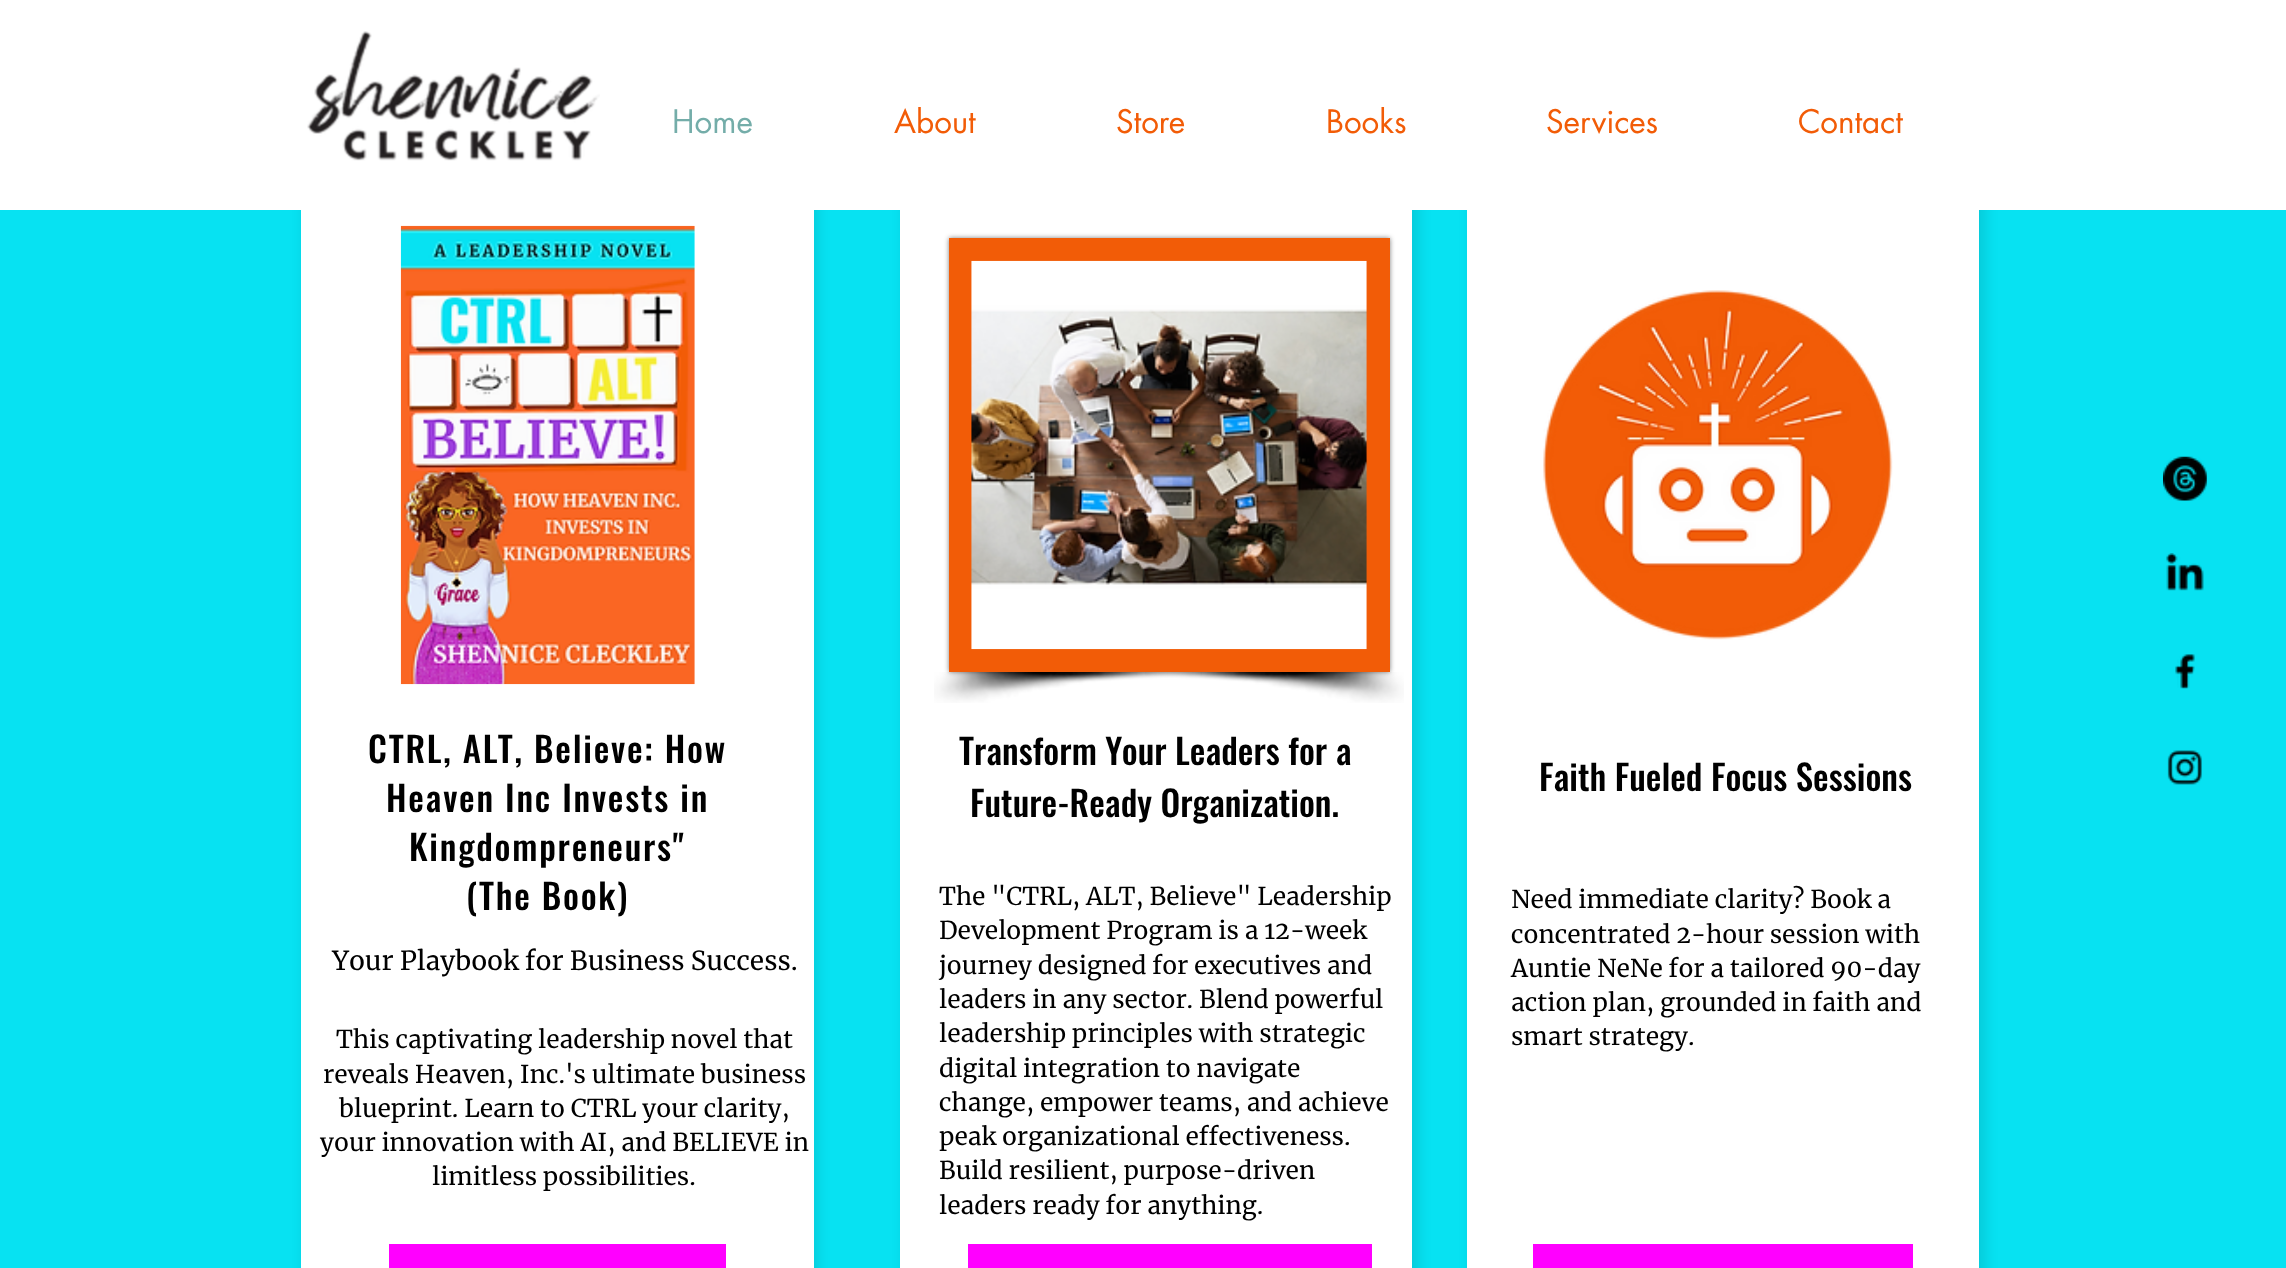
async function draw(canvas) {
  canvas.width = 2286
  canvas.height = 1268
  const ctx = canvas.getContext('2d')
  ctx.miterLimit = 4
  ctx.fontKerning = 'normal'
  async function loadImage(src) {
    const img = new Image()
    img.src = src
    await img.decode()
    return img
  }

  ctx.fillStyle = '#07e2f2'
  ctx.fillRect(0, 0, 2286, 1268)
  ctx.fillStyle = '#0000001c'
  ctx.filter = 'blur(7px)'
  ctx.beginPath()
  ctx.rect(305, 149, 512, 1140)
  ctx.fill()
  ctx.filter = 'none'
  ctx.filter = 'blur(7px)'
  ctx.beginPath()
  ctx.rect(905, 147, 513, 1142)
  ctx.fill()
  ctx.filter = 'none'
  ctx.filter = 'blur(7px)'
  ctx.beginPath()
  ctx.rect(1472, 147, 513, 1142)
  ctx.fill()
  ctx.filter = 'none'
  ctx.fillStyle = '#fff'
  ctx.fillRect(0, 0, 2286, 210)
  ctx.drawImage(await loadImage('image0.png'), 307, 31, 293, 130)
  ctx.font = '31.5px futura'
  ctx.fillStyle = '#74ada9'
  ctx.fillText('Home', 672, 133)
  ctx.fillStyle = '#f25c07'
  ctx.fillText('About', 894, 133)
  ctx.fillText('Store', 1116, 133)
  ctx.fillText('Books', 1326, 133)
  ctx.fillText('Services', 1546, 133)
  ctx.fillText('Contact', 1798, 133)
  ctx.drawImage(await loadImage('image1.png'), 2163, 456, 44, 45)
  ctx.drawImage(await loadImage('image2.png'), 2166, 553, 38, 38)
  ctx.drawImage(await loadImage('image3.png'), 2175, 654, 20, 35)
  ctx.drawImage(await loadImage('image4.png'), 2167, 750, 35, 35)
  ctx.fillStyle = '#fff'
  ctx.fillRect(301, 210, 513, 1058)
  ctx.drawImage(await loadImage('image5.png'), 400, 225, 295, 460)
  ctx.letterSpacing = '1.75px'
  ctx.font = '500 35px Oswald'
  ctx.fillStyle = '#000'
  ctx.fillText('CTRL, ALT, Believe: How', 368, 763)
  ctx.fillText('Heaven Inc Invests in', 386, 812)
  ctx.fillText('Kingdompreneurs"', 409, 861)
  ctx.fillText('(The Book)', 466, 910)
  ctx.letterSpacing = '0px'
  ctx.font = '26.25px Merriweather'
  ctx.fillText('Your Playbook for Business Success.', 332, 970)
  ctx.font = '24.5px Merriweather'
  ctx.fillText('This captivating leadership novel that', 336, 1048)
  ctx.fillText('reveals Heaven, Inc.\'s ultimate business', 323, 1083)
  ctx.fillText('blueprint. Learn to CTRL your clarity,', 339, 1117)
  ctx.fillText('your innovation with AI, and BELIEVE in', 320, 1151)
  ctx.fillText('limitless possibilities.', 432, 1185)
  ctx.fillStyle = '#f0f'
  ctx.fillRect(389, 1244, 337, 24)
  ctx.fillStyle = '#fff'
  ctx.fillRect(900, 210, 512, 1058)
  ctx.fillStyle = '#00000080'
  ctx.filter = 'blur(2.5px)'
  ctx.beginPath()
  ctx.rect(949, 238, 441, 434)
  ctx.fill()
  ctx.filter = 'none'
  ctx.fillStyle = '#f25c07'
  ctx.fillRect(949, 238, 441, 434)
  ctx.drawImage(await loadImage('image6.png'), 971, 260, 396, 390)
  ctx.drawImage(await loadImage('image7.png'), 934, 672, 268, 31)
  ctx.drawImage(await loadImage('image8.png'), 1145, 672, 259, 31)
  ctx.font = '500 35px Oswald'
  ctx.fillStyle = '#000'
  ctx.fillText('Transform Your Leaders for a', 959, 765)
  ctx.fillText('Future-Ready Organization.', 970, 817)
  ctx.font = '24.5px Merriweather'
  ctx.fillText('The "CTRL, ALT, Believe" Leadership', 939, 905)
  ctx.fillText('Development Program is a 12-week', 939, 939)
  ctx.fillText('journey designed for executives and', 939, 974)
  ctx.fillText('leaders in any sector. Blend powerful', 939, 1008)
  ctx.fillText('leadership principles with strategic', 939, 1042)
  ctx.fillText('digital integration to navigate', 939, 1077)
  ctx.fillText('change, empower teams, and achieve', 939, 1111)
  ctx.fillText('peak organizational effectiveness.', 939, 1145)
  ctx.fillText('Build resilient, purpose-driven', 939, 1179)
  ctx.fillText('leaders ready for anything.', 939, 1214)
  ctx.fillStyle = '#f0f'
  ctx.fillRect(968, 1244, 404, 24)
  ctx.fillStyle = '#fff'
  ctx.fillRect(1467, 210, 512, 1058)
  ctx.drawImage(await loadImage('image9.png'), 1543, 290, 350, 350)
  ctx.font = '500 35px Oswald'
  ctx.fillStyle = '#000'
  ctx.fillText('Faith Fueled Focus Sessions', 1539, 791)
  ctx.font = '24.5px Merriweather'
  ctx.fillText('Need immediate clarity? Book a', 1511, 908)
  ctx.fillText('concentrated 2-hour session with', 1511, 943)
  ctx.fillText('Auntie NeNe for a tailored 90-day', 1511, 977)
  ctx.fillText('action plan, grounded in faith and', 1511, 1011)
  ctx.fillText('smart strategy.', 1511, 1045)
  ctx.fillStyle = '#f0f'
  ctx.fillRect(1533, 1244, 380, 24)
}

draw(document.querySelector('canvas'))
